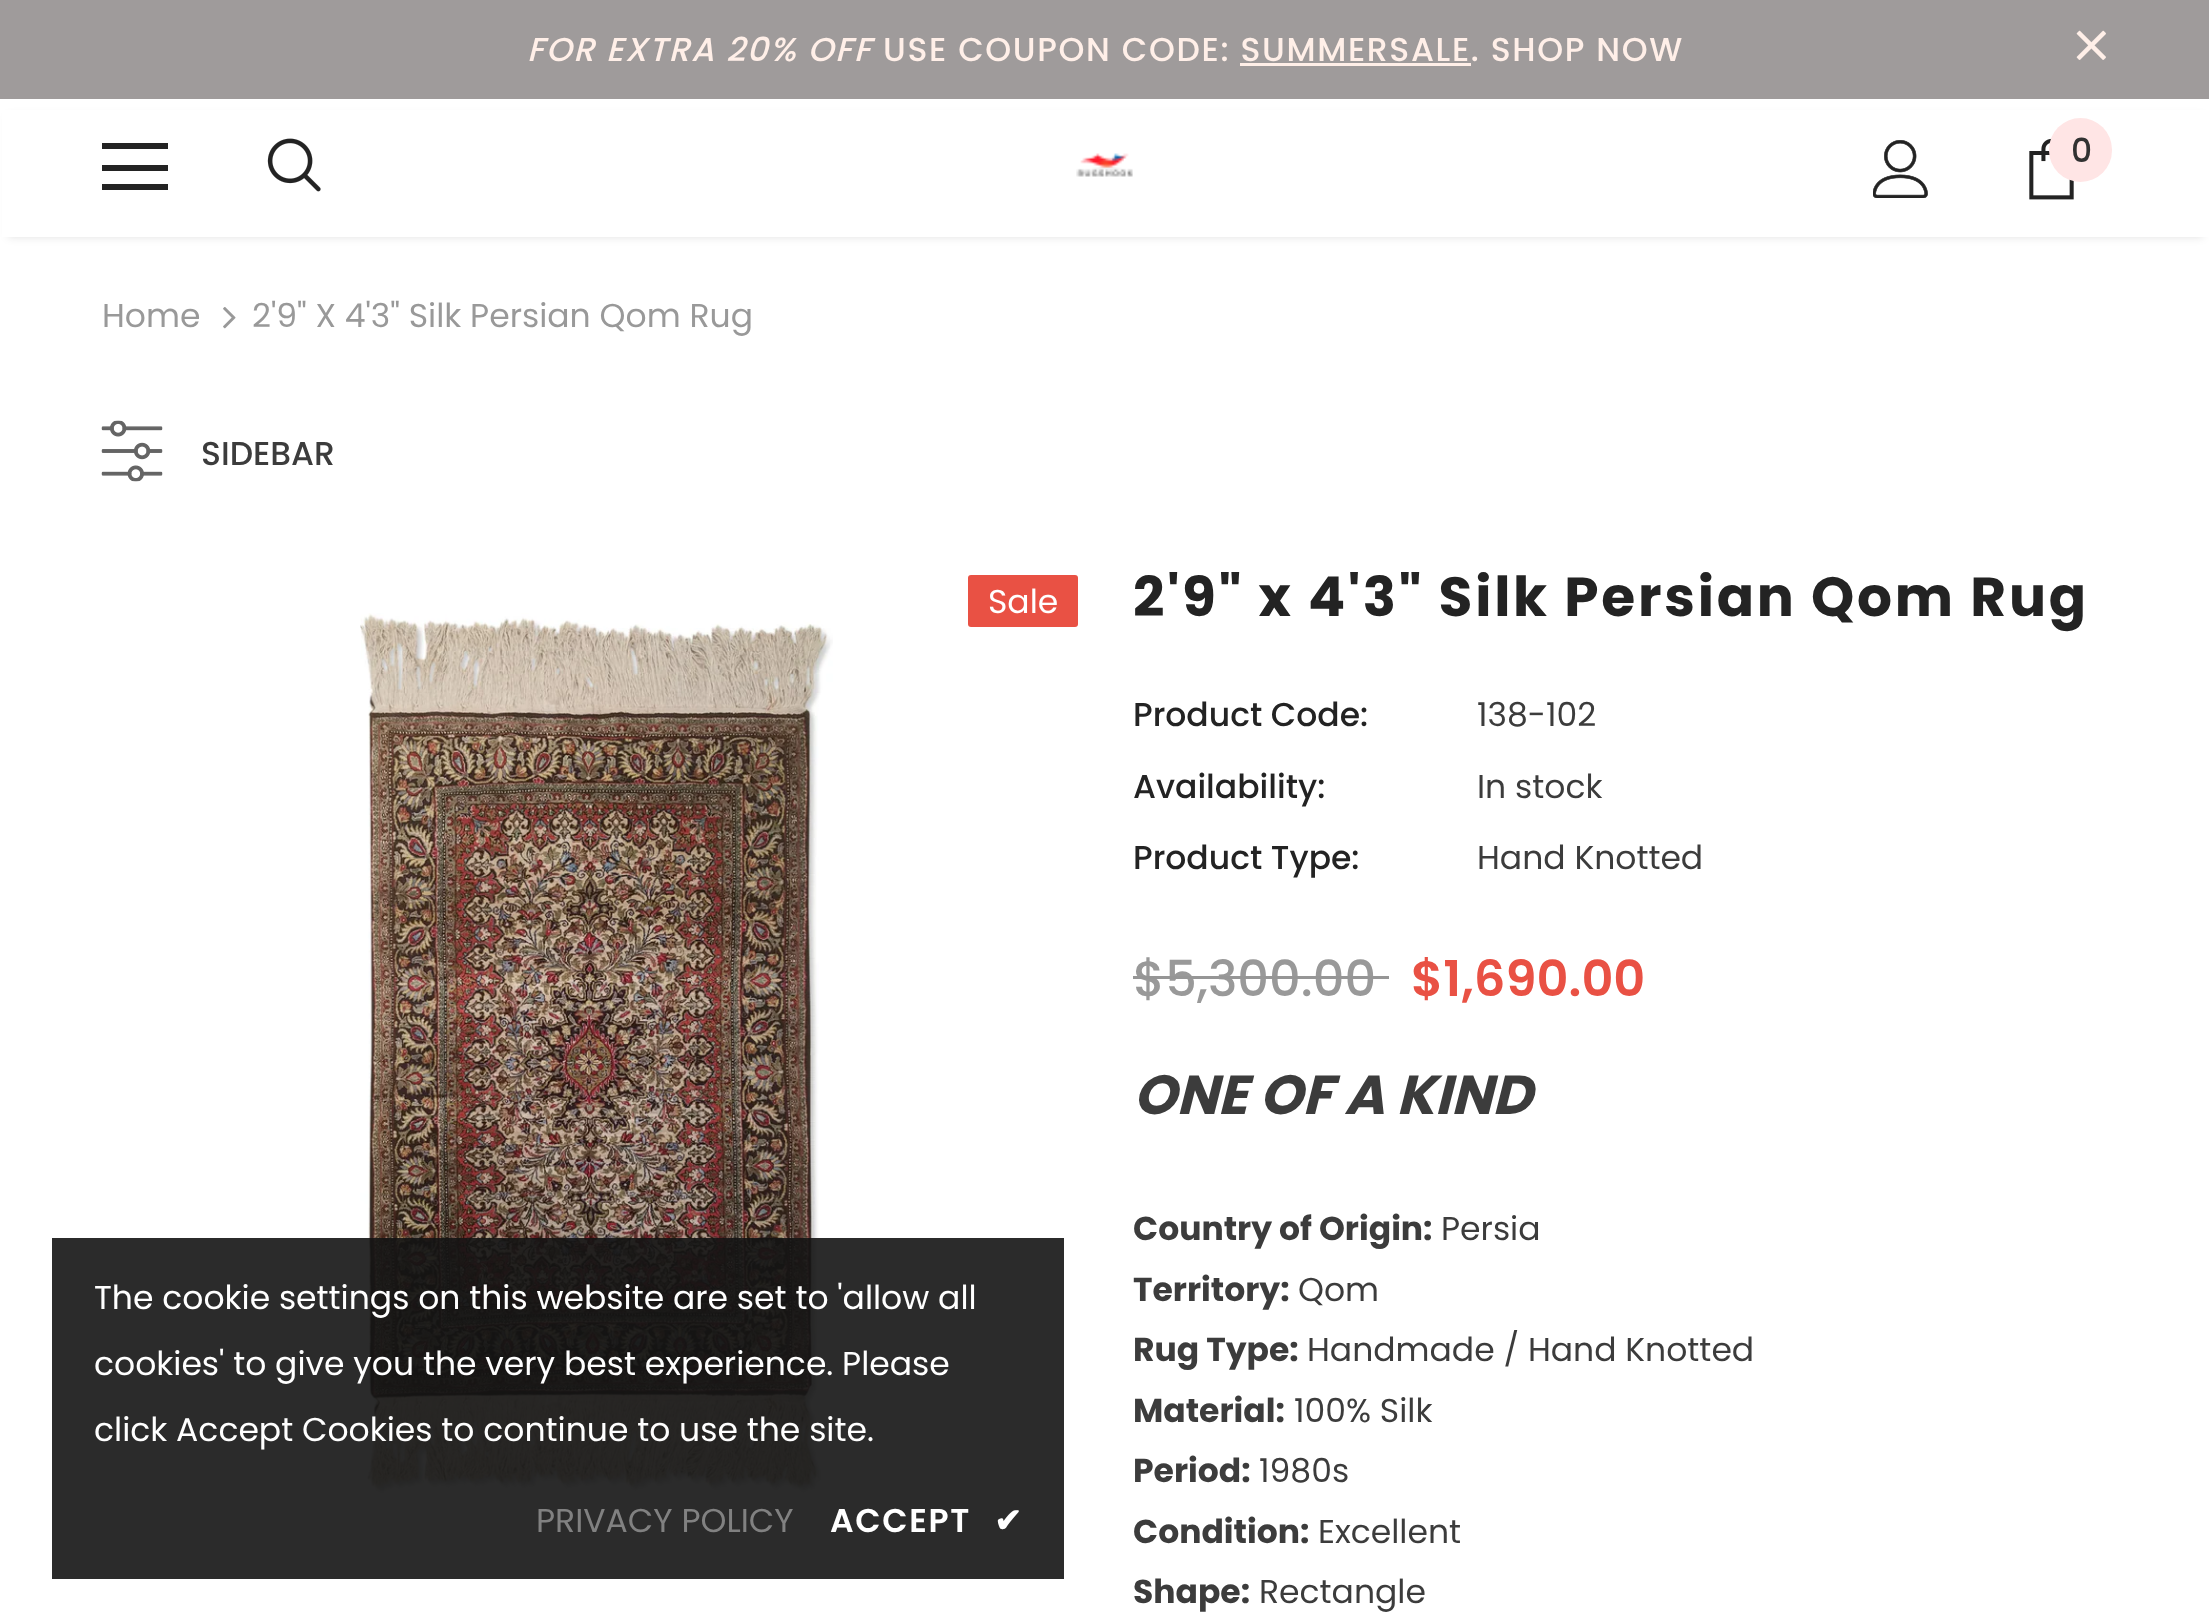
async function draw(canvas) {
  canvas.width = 2209
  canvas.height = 1619
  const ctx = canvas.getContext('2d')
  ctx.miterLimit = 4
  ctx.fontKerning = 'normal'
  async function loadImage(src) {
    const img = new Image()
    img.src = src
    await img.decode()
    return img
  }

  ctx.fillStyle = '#fff'
  ctx.fillRect(0, 0, 2209, 1619)
  ctx.fillStyle = '#9f9b9b'
  ctx.fillRect(0, 0, 2209, 99)
  ctx.letterSpacing = '1.65px'
  ctx.font = 'italic 500 33px Poppins'
  ctx.fillStyle = '#ffefe8'
  ctx.fillText('FOR EXTRA 20% OFF', 527, 61)
  ctx.font = '500 33px Poppins'
  ctx.fillText('USE COUPON CODE: SUMMERSALE. SHOP NOW', 883, 61)
  ctx.fillRect(1240, 63, 231, 3)
  ctx.drawImage(await loadImage('image0.png'), 2076, 30, 30, 30)
  ctx.fillStyle = '#0000001f'
  ctx.filter = 'blur(4px)'
  ctx.beginPath()
  ctx.rect(8, 116, 2195, 121)
  ctx.fill()
  ctx.filter = 'none'
  ctx.fillStyle = '#fff'
  ctx.fillRect(2, 110, 2207, 127)
  ctx.fillStyle = '#232323'
  ctx.fillRect(102, 143, 66, 6)
  ctx.fillRect(102, 165, 66, 6)
  ctx.fillRect(102, 184, 66, 6)
  ctx.drawImage(await loadImage('image1.png'), 267, 138, 54, 54)
  ctx.drawImage(await loadImage('image2.png'), 1076, 153, 57, 24)
  ctx.drawImage(await loadImage('image3.png'), 1873, 140, 55, 58)
  ctx.drawImage(await loadImage('image4.png'), 2029, 138, 45, 62)
  ctx.fillStyle = '#ffe5e5'
  ctx.beginPath()
  ctx.roundRect(2049, 118, 63, 64, 31.5)
  ctx.fill()
  ctx.letterSpacing = '0px'
  ctx.fillStyle = '#323232'
  ctx.fillText('0', 2071, 162)
  ctx.font = '33px Poppins'
  ctx.fillStyle = '#999'
  ctx.fillText('Home', 102, 327)
  ctx.drawImage(await loadImage('image5.png'), 223, 307, 13, 22)
  ctx.fillText('2\'9" X 4\'3" Silk Persian Qom Rug', 252, 327)
  ctx.drawImage(await loadImage('image6.png'), 101, 420, 62, 62)
  ctx.font = '500 33px Poppins'
  ctx.fillStyle = '#3c3c3c'
  ctx.fillText('SIDEBAR', 201, 465)
  ctx.fillStyle = '#e95144'
  ctx.beginPath()
  ctx.roundRect(968, 575, 110, 52, 3)
  ctx.fill()
  ctx.font = '33px Poppins'
  ctx.fillStyle = '#fff'
  ctx.fillText('Sale', 988, 613)
  ctx.drawImage(await loadImage('image7.png'), 360, 613, 473, 881)
  ctx.letterSpacing = '2.75px'
  ctx.font = 'bold 55px Poppins'
  ctx.fillStyle = '#232323'
  ctx.fillText('2\'9" x 4\'3" Silk Persian Qom Rug', 1133, 616)
  ctx.letterSpacing = '0px'
  ctx.font = '500 33px Poppins'
  ctx.fillText('Product Code:', 1133, 726)
  ctx.font = '33px Poppins'
  ctx.fillStyle = '#3c3c3c'
  ctx.fillText('138-102', 1477, 726)
  ctx.font = '500 33px Poppins'
  ctx.fillStyle = '#232323'
  ctx.fillText('Availability:', 1133, 798)
  ctx.font = '33px Poppins'
  ctx.fillStyle = '#3c3c3c'
  ctx.fillText('In stock', 1477, 798)
  ctx.font = '500 33px Poppins'
  ctx.fillStyle = '#232323'
  ctx.fillText('Product Type:', 1133, 869)
  ctx.font = '33px Poppins'
  ctx.fillStyle = '#3c3c3c'
  ctx.fillText('Hand Knotted', 1477, 869)
  ctx.font = '500 49.5px Poppins'
  ctx.fillStyle = '#999'
  ctx.fillText('$5,300.00', 1133, 996)
  ctx.fillStyle = '#969696'
  ctx.fillRect(1133, 976, 256, 3)
  ctx.font = '600 49.5px Poppins'
  ctx.fillStyle = '#e95144'
  ctx.fillText('$1,690.00', 1411, 996)
  ctx.font = 'italic bold 55px Poppins'
  ctx.fillStyle = '#3c3c3c'
  ctx.fillText('ONE OF A KIND', 1133, 1114)
  ctx.font = 'bold 33px Poppins'
  ctx.fillText('Country of Origin:', 1133, 1240)
  ctx.font = '33px Poppins'
  ctx.fillText('Persia', 1441, 1240)
  ctx.font = 'bold 33px Poppins'
  ctx.fillText('Territory:', 1133, 1301)
  ctx.font = '33px Poppins'
  ctx.fillText('Qom', 1298, 1301)
  ctx.font = 'bold 33px Poppins'
  ctx.fillText('Rug Type:', 1133, 1361)
  ctx.font = '33px Poppins'
  ctx.fillText('Handmade / Hand Knotted', 1307, 1361)
  ctx.font = 'bold 33px Poppins'
  ctx.fillText('Material:', 1133, 1422)
  ctx.font = '33px Poppins'
  ctx.fillText('100% Silk', 1294, 1422)
  ctx.font = 'bold 33px Poppins'
  ctx.fillText('Period:', 1133, 1482)
  ctx.font = '33px Poppins'
  ctx.fillText('1980s', 1259, 1482)
  ctx.font = 'bold 33px Poppins'
  ctx.fillText('Condition:', 1133, 1543)
  ctx.font = '33px Poppins'
  ctx.fillText('Excellent', 1318, 1543)
  ctx.font = 'bold 33px Poppins'
  ctx.fillText('Shape:', 1133, 1603)
  ctx.font = '33px Poppins'
  ctx.fillText('Rectangle', 1259, 1603)
  ctx.fillStyle = '#141414e6'
  ctx.fillRect(52, 1238, 1012, 341)
  ctx.fillStyle = '#fff'
  ctx.fillText('The cookie settings on this website are set to \'allow all', 94, 1309)
  ctx.fillText('cookies\' to give you the very best experience. Please', 94, 1375)
  ctx.fillText('click Accept Cookies to continue to use the site.', 94, 1441)
  ctx.fillStyle = '#818181'
  ctx.fillText('PRIVACY POLICY', 536, 1532)
  ctx.letterSpacing = '1.65px'
  ctx.font = '600 33px Poppins'
  ctx.fillStyle = '#fff'
  ctx.fillText('ACCEPT', 830, 1532)
  ctx.font = 'bold 33px DejaVu Sans'
  ctx.fillText('✔', 994, 1532)
}

draw(document.querySelector('canvas'))
